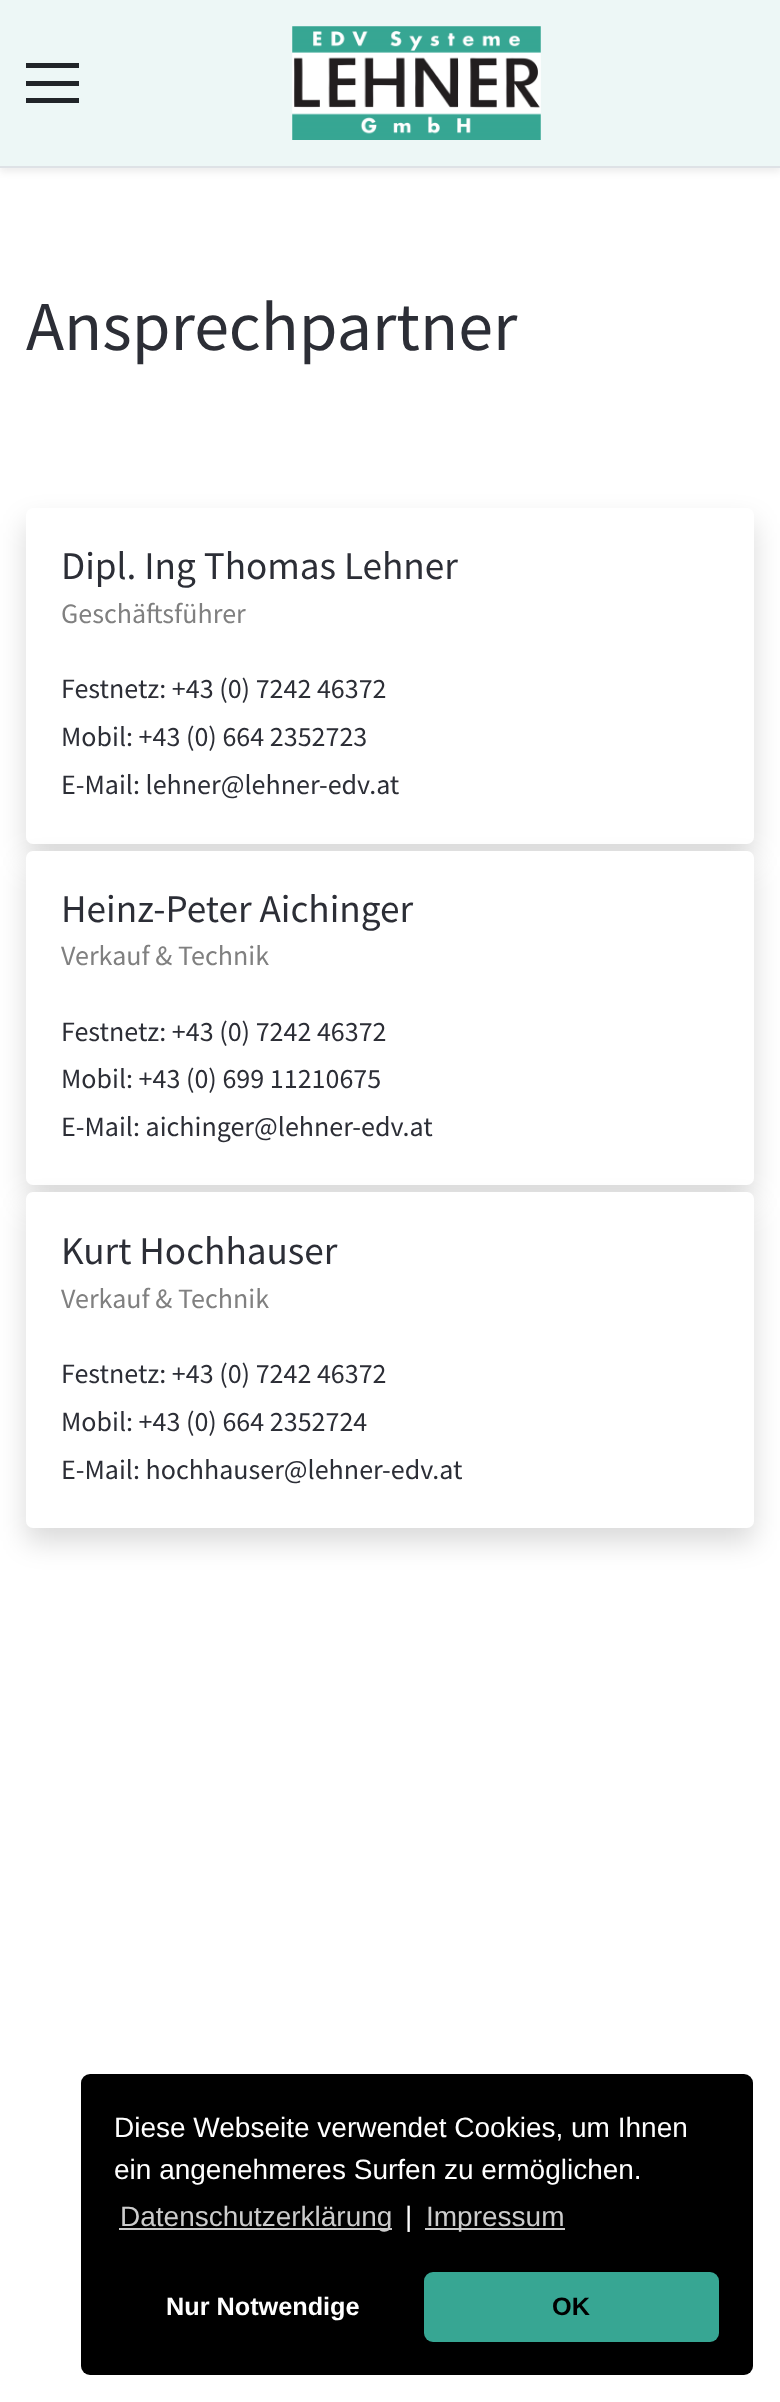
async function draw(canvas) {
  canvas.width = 780
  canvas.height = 2402
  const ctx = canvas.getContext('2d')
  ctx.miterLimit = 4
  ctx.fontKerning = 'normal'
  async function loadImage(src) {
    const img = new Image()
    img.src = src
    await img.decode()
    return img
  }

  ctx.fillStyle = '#fff'
  ctx.fillRect(0, 0, 780, 2402)
  ctx.fillStyle = '#00000012'
  ctx.filter = 'blur(3.5px)'
  ctx.beginPath()
  ctx.rect(0, 4, 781, 168)
  ctx.fill()
  ctx.filter = 'none'
  ctx.fillStyle = '#edf7f6'
  ctx.fillRect(0, 0, 780, 166)
  ctx.fillStyle = '#dee2e6'
  ctx.fillRect(0, 166, 780, 2)
  ctx.fillStyle = '#212529'
  ctx.fillRect(26, 81, 53, 5)
  ctx.fillRect(26, 63, 53, 5)
  ctx.fillRect(26, 98, 53, 5)
  ctx.drawImage(await loadImage('image0.png'), 292, 26, 249, 114)
  ctx.font = '70px Source Sans Pro'
  ctx.fillStyle = '#2c2e36'
  ctx.fillText('Ansprechpartner', 26, 350)
  ctx.fillStyle = '#00000026'
  ctx.filter = 'blur(14px)'
  ctx.beginPath()
  ctx.roundRect(26, 522, 728, 336, 7)
  ctx.fill()
  ctx.filter = 'none'
  ctx.fillStyle = '#fff'
  ctx.beginPath()
  ctx.roundRect(26, 508, 728, 336, 7)
  ctx.fill()
  ctx.font = '39.25px Source Sans Pro'
  ctx.fillStyle = '#2c2e36'
  ctx.fillText('Dipl. Ing Thomas Lehner', 61, 579)
  ctx.font = '28px Source Sans Pro'
  ctx.fillStyle = '#808080'
  ctx.fillText('Geschäftsführer', 61, 623)
  ctx.fillStyle = '#2c2e36'
  ctx.fillText('Festnetz: +43 (0) 7242 46372', 61, 698)
  ctx.fillText('Mobil: +43 (0) 664 2352723', 61, 746)
  ctx.fillText('E-Mail: lehner@lehner-edv.at', 61, 794)
  ctx.fillStyle = '#00000026'
  ctx.filter = 'blur(14px)'
  ctx.beginPath()
  ctx.roundRect(26, 865, 728, 334, 7)
  ctx.fill()
  ctx.filter = 'none'
  ctx.fillStyle = '#fff'
  ctx.beginPath()
  ctx.roundRect(26, 851, 728, 334, 7)
  ctx.fill()
  ctx.font = '39.25px Source Sans Pro'
  ctx.fillStyle = '#2c2e36'
  ctx.fillText('Heinz-Peter Aichinger', 61, 922)
  ctx.font = '28px Source Sans Pro'
  ctx.fillStyle = '#808080'
  ctx.fillText('Verkauf & Technik', 61, 965)
  ctx.fillStyle = '#2c2e36'
  ctx.fillText('Festnetz: +43 (0) 7242 46372', 61, 1041)
  ctx.fillText('Mobil: +43 (0) 699 11210675', 61, 1088)
  ctx.fillText('E-Mail: aichinger@lehner-edv.at', 61, 1136)
  ctx.fillStyle = '#00000026'
  ctx.filter = 'blur(14px)'
  ctx.beginPath()
  ctx.roundRect(26, 1206, 728, 336, 7)
  ctx.fill()
  ctx.filter = 'none'
  ctx.fillStyle = '#fff'
  ctx.beginPath()
  ctx.roundRect(26, 1192, 728, 336, 7)
  ctx.fill()
  ctx.font = '39.25px Source Sans Pro'
  ctx.fillStyle = '#2c2e36'
  ctx.fillText('Kurt Hochhauser', 61, 1264)
  ctx.font = '28px Source Sans Pro'
  ctx.fillStyle = '#808080'
  ctx.fillText('Verkauf & Technik', 61, 1308)
  ctx.fillStyle = '#2c2e36'
  ctx.fillText('Festnetz: +43 (0) 7242 46372', 61, 1383)
  ctx.fillText('Mobil: +43 (0) 664 2352724', 61, 1431)
  ctx.fillText('E-Mail: hochhauser@lehner-edv.at', 61, 1479)
  ctx.fillStyle = '#000'
  ctx.beginPath()
  ctx.roundRect(81, 2074, 672, 301, 9)
  ctx.fill()
  ctx.font = '28px Liberation Sans'
  ctx.fillStyle = '#fff'
  ctx.fillText('Diese Webseite verwendet Cookies, um Ihnen', 114, 2137)
  ctx.fillText('ein angenehmeres Surfen zu ermöglichen.', 114, 2179)
  ctx.fillStyle = '#ccc'
  ctx.fillRect(119, 2228, 273, 2)
  ctx.fillText('Datenschutzerklärung', 120, 2226)
  ctx.fillStyle = '#fff'
  ctx.fillText('|', 405, 2226)
  ctx.fillStyle = '#ccc'
  ctx.fillRect(425, 2228, 140, 2)
  ctx.fillText('Impressum', 426, 2226)
  ctx.font = 'bold 25.25px Liberation Sans'
  ctx.fillStyle = '#fff'
  ctx.fillText('Nur Notwendige', 166, 2315)
  ctx.fillStyle = '#37a693'
  ctx.beginPath()
  ctx.roundRect(424, 2272, 295, 70, 9)
  ctx.fill()
  ctx.fillStyle = '#000'
  ctx.fillText('OK', 552, 2315)
}

draw(document.querySelector('canvas'))
